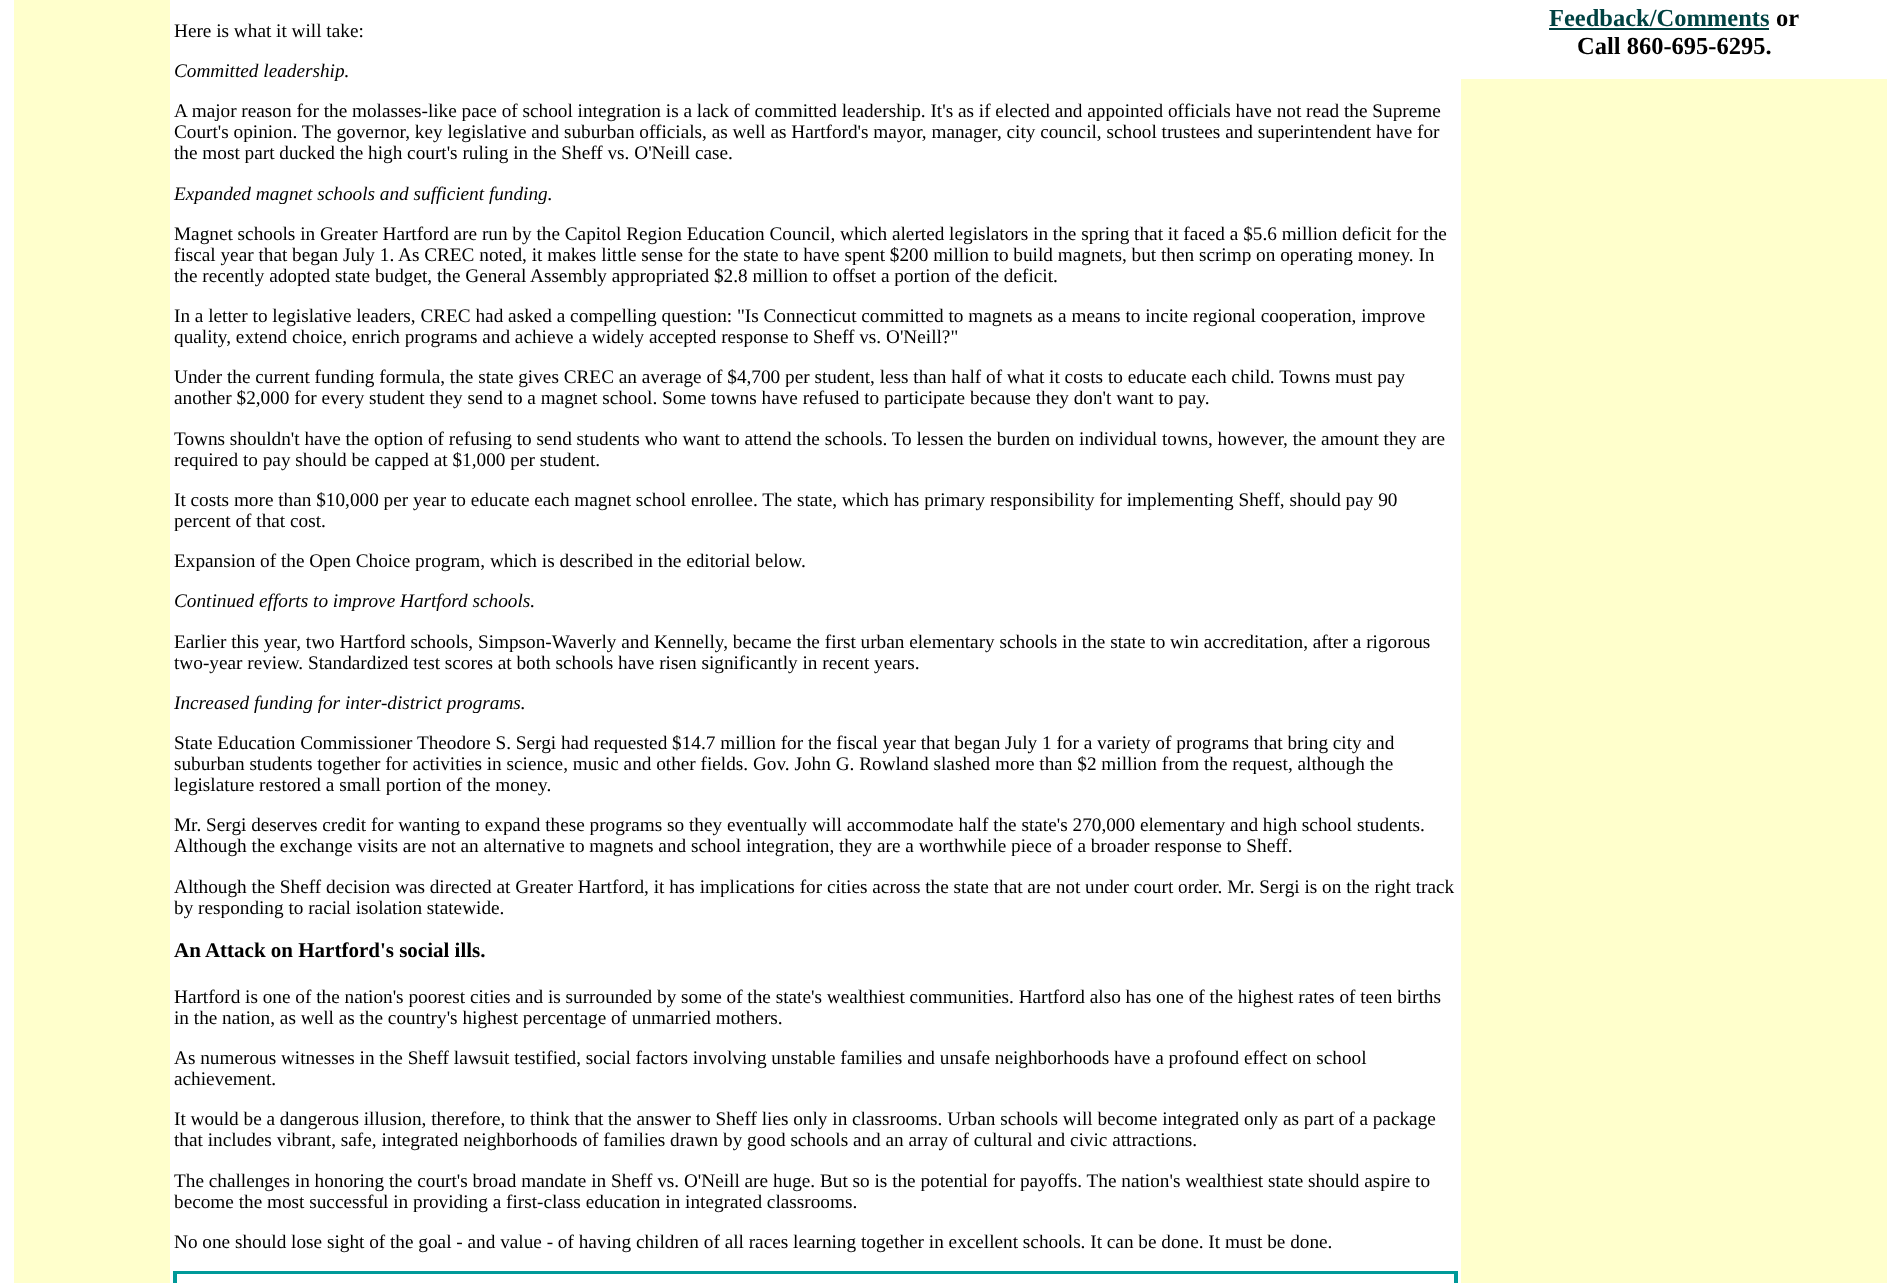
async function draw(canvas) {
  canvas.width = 1899
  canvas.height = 1283
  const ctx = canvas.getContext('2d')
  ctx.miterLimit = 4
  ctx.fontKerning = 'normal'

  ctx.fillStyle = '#fff'
  ctx.fillRect(0, 0, 1899, 1283)
  ctx.fillStyle = '#ffc'
  ctx.fillRect(14, 0, 156, 1283)
  ctx.font = '19.25px Liberation Serif'
  ctx.fillStyle = '#000'
  ctx.fillText('Here is what it will take:', 174, 37)
  ctx.font = 'italic 19.25px Liberation Serif'
  ctx.fillText('Committed leadership.', 174, 77)
  ctx.font = '19.25px Liberation Serif'
  ctx.fillText('A major reason for the molasses-like pace of school integration is a lack of committed leadership. It\'s as if elected and appointed officials have not read the Supreme', 174, 117)
  ctx.fillText('Court\'s opinion. The governor, key legislative and suburban officials, as well as Hartford\'s mayor, manager, city council, school trustees and superintendent have for', 174, 138)
  ctx.fillText('the most part ducked the high court\'s ruling in the Sheff vs. O\'Neill case.', 174, 159)
  ctx.font = 'italic 19.25px Liberation Serif'
  ctx.fillText('Expanded magnet schools and sufficient funding.', 174, 200)
  ctx.font = '19.25px Liberation Serif'
  ctx.fillText('Magnet schools in Greater Hartford are run by the Capitol Region Education Council, which alerted legislators in the spring that it faced a $5.6 million deficit for the', 174, 240)
  ctx.fillText('fiscal year that began July 1. As CREC noted, it makes little sense for the state to have spent $200 million to build magnets, but then scrimp on operating money. In', 174, 261)
  ctx.fillText('the recently adopted state budget, the General Assembly appropriated $2.8 million to offset a portion of the deficit.', 174, 282)
  ctx.fillText('In a letter to legislative leaders, CREC had asked a compelling question: "Is Connecticut committed to magnets as a means to incite regional cooperation, improve', 174, 322)
  ctx.fillText('quality, extend choice, enrich programs and achieve a widely accepted response to Sheff vs. O\'Neill?"', 174, 343)
  ctx.fillText('Under the current funding formula, the state gives CREC an average of $4,700 per student, less than half of what it costs to educate each child. Towns must pay', 174, 383)
  ctx.fillText('another $2,000 for every student they send to a magnet school. Some towns have refused to participate because they don\'t want to pay.', 174, 404)
  ctx.fillText('Towns shouldn\'t have the option of refusing to send students who want to attend the schools. To lessen the burden on individual towns, however, the amount they are', 174, 445)
  ctx.fillText('required to pay should be capped at $1,000 per student.', 174, 466)
  ctx.fillText('It costs more than $10,000 per year to educate each magnet school enrollee. The state, which has primary responsibility for implementing Sheff, should pay 90', 174, 506)
  ctx.fillText('percent of that cost.', 174, 527)
  ctx.fillText('Expansion of the Open Choice program, which is described in the editorial below.', 174, 567)
  ctx.font = 'italic 19.25px Liberation Serif'
  ctx.fillText('Continued efforts to improve Hartford schools.', 174, 607)
  ctx.font = '19.25px Liberation Serif'
  ctx.fillText('Earlier this year, two Hartford schools, Simpson-Waverly and Kennelly, became the first urban elementary schools in the state to win accreditation, after a rigorous', 174, 648)
  ctx.fillText('two-year review. Standardized test scores at both schools have risen significantly in recent years.', 174, 669)
  ctx.font = 'italic 19.25px Liberation Serif'
  ctx.fillText('Increased funding for inter-district programs.', 174, 709)
  ctx.font = '19.25px Liberation Serif'
  ctx.fillText('State Education Commissioner Theodore S. Sergi had requested $14.7 million for the fiscal year that began July 1 for a variety of programs that bring city and', 174, 749)
  ctx.fillText('suburban students together for activities in science, music and other fields. Gov. John G. Rowland slashed more than $2 million from the request, although the', 174, 770)
  ctx.fillText('legislature restored a small portion of the money.', 174, 791)
  ctx.fillText('Mr. Sergi deserves credit for wanting to expand these programs so they eventually will accommodate half the state\'s 270,000 elementary and high school students.', 174, 831)
  ctx.fillText('Although the exchange visits are not an alternative to magnets and school integration, they are a worthwhile piece of a broader response to Sheff.', 174, 852)
  ctx.fillText('Although the Sheff decision was directed at Greater Hartford, it has implications for cities across the state that are not under court order. Mr. Sergi is on the right track', 174, 893)
  ctx.fillText('by responding to racial isolation statewide.', 174, 914)
  ctx.font = 'bold 21px Liberation Serif'
  ctx.fillText('An Attack on Hartford\'s social ills.', 174, 957)
  ctx.font = '19.25px Liberation Serif'
  ctx.fillText('Hartford is one of the nation\'s poorest cities and is surrounded by some of the state\'s wealthiest communities. Hartford also has one of the highest rates of teen births', 174, 1003)
  ctx.fillText('in the nation, as well as the country\'s highest percentage of unmarried mothers.', 174, 1024)
  ctx.fillText('As numerous witnesses in the Sheff lawsuit testified, social factors involving unstable families and unsafe neighborhoods have a profound effect on school', 174, 1064)
  ctx.fillText('achievement.', 174, 1085)
  ctx.fillText('It would be a dangerous illusion, therefore, to think that the answer to Sheff lies only in classrooms. Urban schools will become integrated only as part of a package', 174, 1125)
  ctx.fillText('that includes vibrant, safe, integrated neighborhoods of families drawn by good schools and an array of cultural and civic attractions.', 174, 1146)
  ctx.fillText('The challenges in honoring the court\'s broad mandate in Sheff vs. O\'Neill are huge. But so is the potential for payoffs. The nation\'s wealthiest state should aspire to', 174, 1187)
  ctx.fillText('become the most successful in providing a first-class education in integrated classrooms.', 174, 1208)
  ctx.fillText('No one should lose sight of the goal - and value - of having children of all races learning together in excellent schools. It can be done. It must be done.', 174, 1248)
  ctx.strokeStyle = '#099'
  ctx.lineWidth = 2
  ctx.strokeRect(174, 1272, 1283, 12)
  ctx.strokeRect(176, 1273, 1279, 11)
  ctx.fillStyle = '#ffc'
  ctx.fillRect(1461, 79, 426, 1204)
  ctx.font = 'bold 24.5px Liberation Serif'
  ctx.fillStyle = '#004242'
  ctx.fillText('Feedback/Comments', 1549, 26)
  ctx.fillRect(1549, 28, 220, 2)
  ctx.fillStyle = '#000'
  ctx.fillText('or', 1776, 26)
  ctx.fillText('Call 860-695-6295.', 1577, 54)
}

draw(document.querySelector('canvas'))
